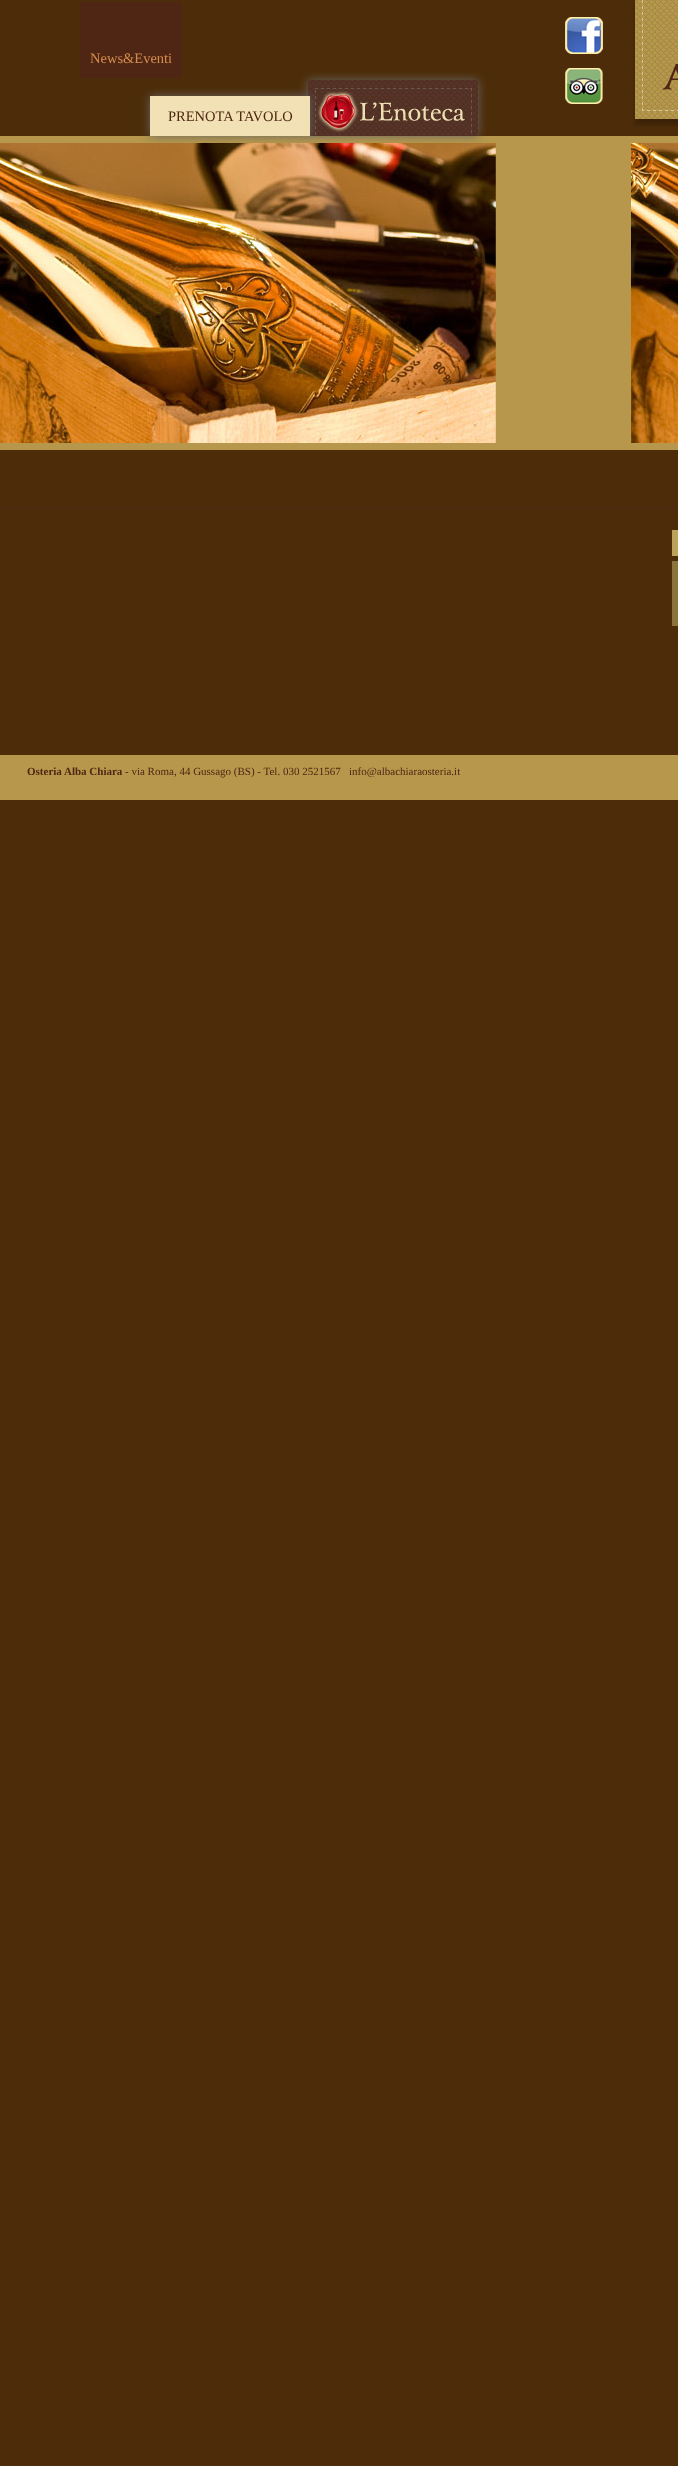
async function draw(canvas) {
  canvas.width = 678
  canvas.height = 2466
  const ctx = canvas.getContext('2d')
  ctx.miterLimit = 4
  ctx.fontKerning = 'normal'
  async function loadImage(src) {
    const img = new Image()
    img.src = src
    await img.decode()
    return img
  }

  ctx.fillStyle = '#4d2d09'
  ctx.fillRect(0, 0, 678, 2466)
  ctx.fillStyle = '#4e2613'
  ctx.fillRect(80, 2, 102, 76)
  ctx.font = '14.5px Liberation Serif'
  ctx.fillStyle = '#d78c4f'
  ctx.fillText('News&Eventi', 90, 63)
  ctx.fillStyle = '#b6974b'
  ctx.fillRect(0, 136, 678, 314)
  ctx.fillStyle = '#666'
  ctx.filter = 'blur(5px)'
  ctx.beginPath()
  ctx.rect(308, 80, 170, 56)
  ctx.fill()
  ctx.filter = 'none'
  ctx.drawImage(await loadImage('image0.png'), 308, 80, 170, 56)
  ctx.filter = 'blur(5px)'
  ctx.beginPath()
  ctx.rect(150, 96, 160, 40)
  ctx.fill()
  ctx.filter = 'none'
  ctx.fillStyle = '#f2e1b4'
  ctx.fillRect(150, 96, 160, 40)
  ctx.fillStyle = '#4e2613'
  ctx.fillText('PRENOTA TAVOLO', 168, 121)
  ctx.drawImage(await loadImage('image1.png'), 565, 17, 38, 37)
  ctx.drawImage(await loadImage('image2.png'), 565, 68, 38, 36)
  ctx.drawImage(await loadImage('image3.png'), 633, 0, 45, 127)
  ctx.drawImage(await loadImage('image4.png'), 0, 143, 496, 300)
  ctx.drawImage(await loadImage('image5.png'), 631, 143, 47, 300)
  ctx.fillRect(0, 507, 678, 1)
  ctx.fillStyle = '#bba35c'
  ctx.fillRect(672, 530, 6, 26)
  ctx.fillStyle = '#8c723b'
  ctx.fillRect(672, 561, 6, 65)
  ctx.fillStyle = '#b6974b'
  ctx.fillRect(0, 755, 678, 45)
  ctx.font = 'bold 11px Liberation Serif'
  ctx.fillStyle = '#4e2613'
  ctx.fillText('Osteria Alba Chiara', 27, 775)
  ctx.font = '11px Liberation Serif'
  ctx.fillText('- via Roma, 44 Gussago (BS) - Tel. 030 2521567', 125, 775)
  ctx.fillText('info@albachiaraosteria.it', 349, 775)
}

draw(document.querySelector('canvas'))
